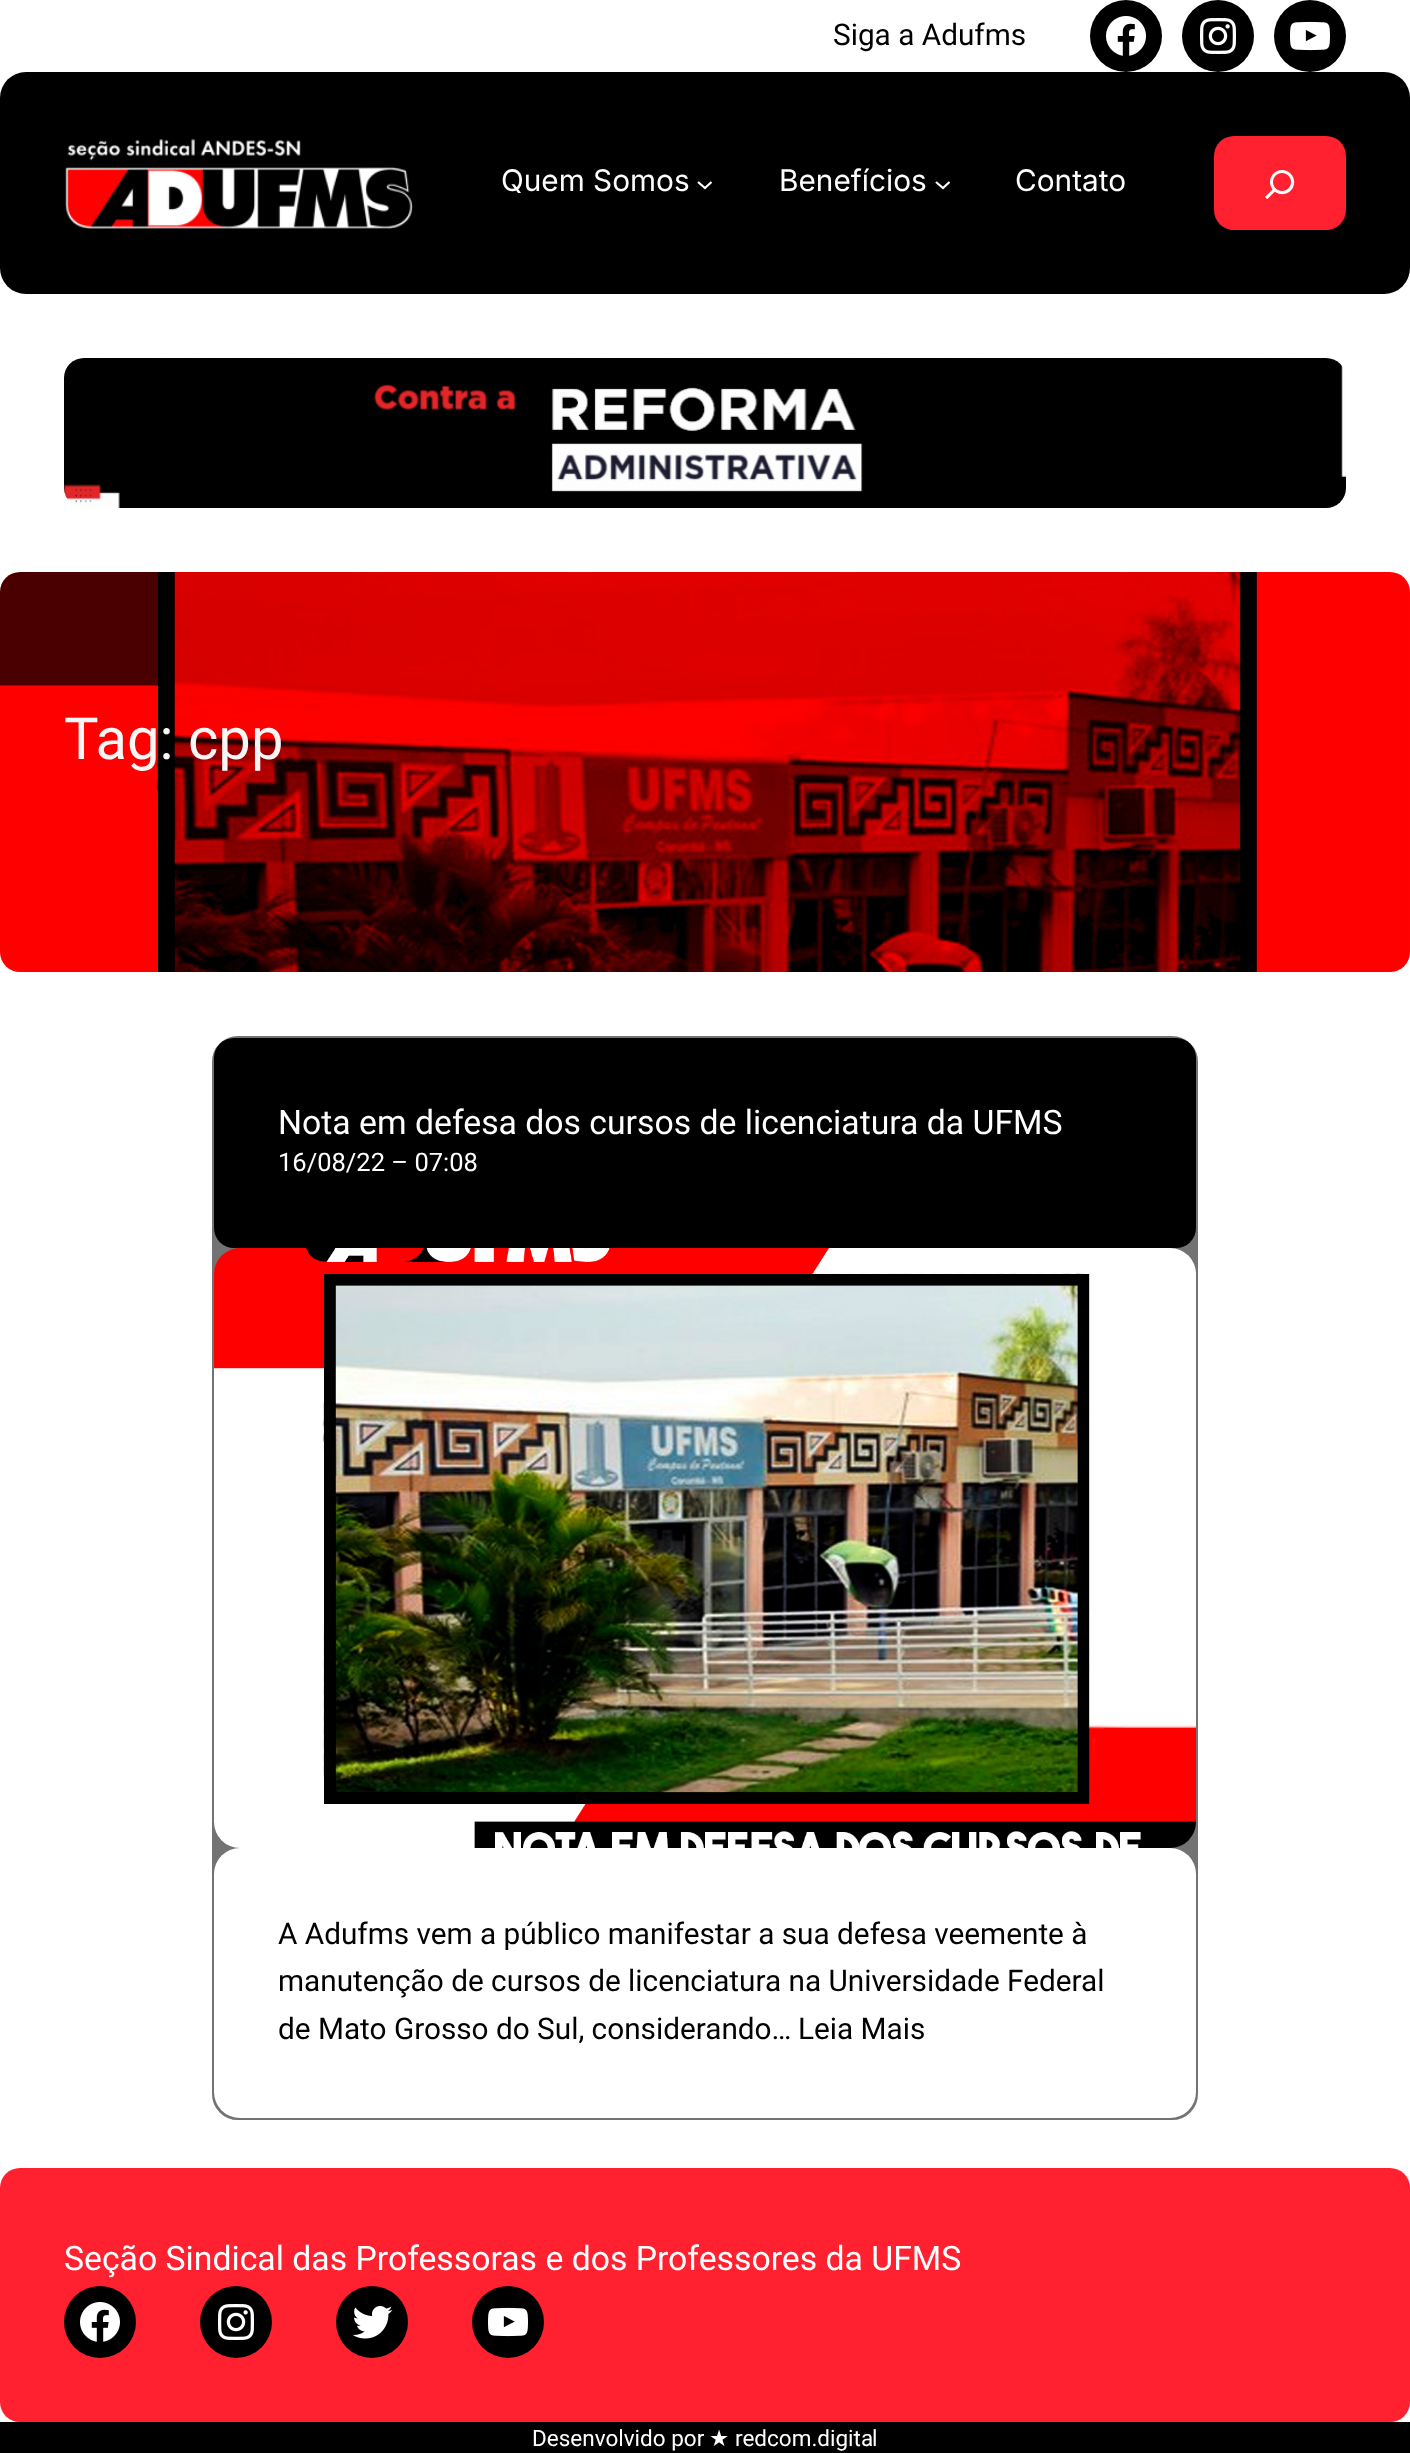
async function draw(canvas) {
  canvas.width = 1410
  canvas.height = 2453
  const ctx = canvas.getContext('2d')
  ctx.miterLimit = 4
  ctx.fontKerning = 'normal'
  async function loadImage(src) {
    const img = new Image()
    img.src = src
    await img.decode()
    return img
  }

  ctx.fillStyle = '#fff'
  ctx.fillRect(0, 0, 1410, 2453)
  ctx.font = '29.75px Roboto'
  ctx.fillStyle = '#000'
  ctx.fillText('Siga a Adufms', 833, 45)
  ctx.beginPath()
  ctx.arc(1126, 36, 36, 0, 2 * Math.PI)
  ctx.fill()
  ctx.drawImage(await loadImage('image0.png'), 1106, 16, 40, 40)
  ctx.beginPath()
  ctx.arc(1218, 36, 36, 0, 2 * Math.PI)
  ctx.fill()
  ctx.drawImage(await loadImage('image1.png'), 1200, 18, 36, 36)
  ctx.beginPath()
  ctx.arc(1310, 36, 36, 0, 2 * Math.PI)
  ctx.fill()
  ctx.drawImage(await loadImage('image2.png'), 1290, 21, 40, 30)
  ctx.beginPath()
  ctx.roundRect(0, 72, 1410, 222, 26)
  ctx.fill()
  ctx.drawImage(await loadImage('image3.png'), 65, 139, 348, 90)
  ctx.font = '29.75px Inter'
  ctx.fillStyle = '#fff'
  ctx.fillText('Quem Somos', 501, 191)
  ctx.beginPath()
  ctx.moveTo(698, 182)
  ctx.lineTo(705, 188)
  ctx.lineTo(711.5, 182)
  ctx.strokeStyle = '#fff'
  ctx.lineWidth = 2.2
  ctx.stroke()
  ctx.fillText('Benefícios', 779, 191)
  ctx.beginPath()
  ctx.moveTo(936, 182)
  ctx.lineTo(943, 188)
  ctx.lineTo(949.5, 182)
  ctx.stroke()
  ctx.fillText('Contato', 1015, 191)
  ctx.fillStyle = '#ff2130'
  ctx.beginPath()
  ctx.roundRect(1214, 136, 132, 94, 20)
  ctx.fill()
  ctx.drawImage(await loadImage('image4.png'), 1265, 170, 30, 30)
  ctx.drawImage(await loadImage('image5.png'), 64, 358, 1282, 150)
  ctx.drawImage(await loadImage('image6.png'), 0, 572, 1410, 400)
  ctx.font = '58px Roboto'
  ctx.fillStyle = '#f6f6f6'
  ctx.fillText('Tag: cpp', 64, 759)
  ctx.fillStyle = '#737373'
  ctx.beginPath()
  ctx.roundRect(213, 1037, 984, 1082, 25)
  ctx.fill()
  ctx.strokeStyle = '#737373'
  ctx.lineWidth = 2
  ctx.stroke()
  ctx.fillStyle = '#000'
  ctx.beginPath()
  ctx.roundRect(214, 1038, 982, 210, 20)
  ctx.fill()
  ctx.font = '33.75px Roboto'
  ctx.fillStyle = '#fff'
  ctx.fillText('Nota em defesa dos cursos de licenciatura da UFMS', 278, 1134)
  ctx.font = '25.5px Roboto'
  ctx.fillText('16/08/22 – 07:08', 278, 1171)
  ctx.drawImage(await loadImage('image7.png'), 214, 1248, 982, 600)
  ctx.beginPath()
  ctx.roundRect(214, 1848, 982, 270, 26)
  ctx.fill()
  ctx.font = '29.75px Roboto'
  ctx.fillStyle = '#000'
  ctx.fillText('A Adufms vem a público manifestar a sua defesa veemente à', 278, 1944)
  ctx.fillText('manutenção de cursos de licenciatura na Universidade Federal', 278, 1991)
  ctx.fillText('de Mato Grosso do Sul, considerando…', 278, 2039)
  ctx.fillText('Leia Mais', 798, 2039)
  ctx.fillStyle = '#ff2130'
  ctx.beginPath()
  ctx.roundRect(0, 2168, 1410, 254, 20)
  ctx.fill()
  ctx.font = '33.75px Roboto'
  ctx.fillStyle = '#fff'
  ctx.fillText('Seção Sindical das Professoras e dos Professores da UFMS', 64, 2270)
  ctx.fillStyle = '#000'
  ctx.beginPath()
  ctx.arc(100, 2322, 36, 0, 2 * Math.PI)
  ctx.fill()
  ctx.drawImage(await loadImage('image0.png'), 80, 2302, 40, 40)
  ctx.beginPath()
  ctx.arc(236, 2322, 36, 0, 2 * Math.PI)
  ctx.fill()
  ctx.drawImage(await loadImage('image1.png'), 218, 2304, 36, 36)
  ctx.beginPath()
  ctx.arc(372, 2322, 36, 0, 2 * Math.PI)
  ctx.fill()
  ctx.drawImage(await loadImage('image8.png'), 352, 2306, 41, 33)
  ctx.beginPath()
  ctx.arc(508, 2322, 36, 0, 2 * Math.PI)
  ctx.fill()
  ctx.drawImage(await loadImage('image2.png'), 488, 2307, 40, 30)
  ctx.fillRect(0, 2422, 1410, 31)
  ctx.font = '22.5px Roboto'
  ctx.fillStyle = '#fff'
  ctx.fillText('Desenvolvido por', 532, 2446)
  ctx.font = '22.5px DejaVu Sans'
  ctx.fillText('★', 709, 2446)
  ctx.font = '22.5px Roboto'
  ctx.fillText('redcom.digita', 735, 2446)
  ctx.fillText('l', 872, 2446)
}

draw(document.querySelector('canvas'))
